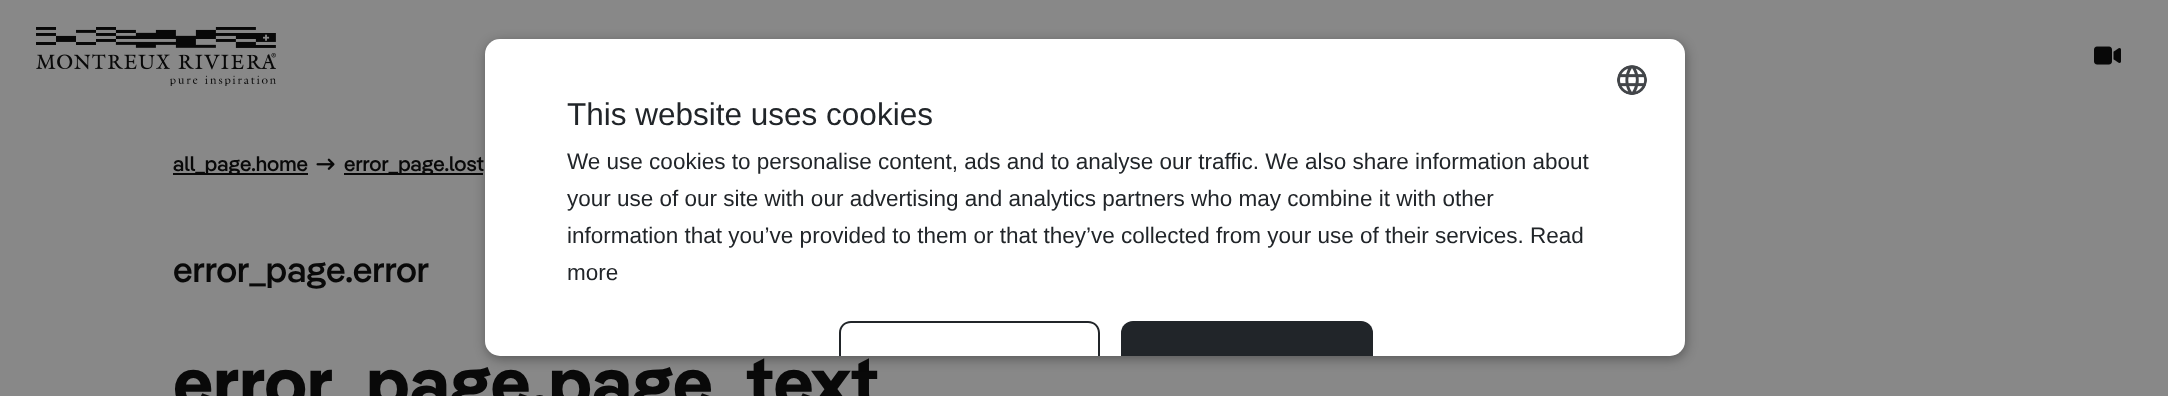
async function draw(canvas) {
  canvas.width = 2168
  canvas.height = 396
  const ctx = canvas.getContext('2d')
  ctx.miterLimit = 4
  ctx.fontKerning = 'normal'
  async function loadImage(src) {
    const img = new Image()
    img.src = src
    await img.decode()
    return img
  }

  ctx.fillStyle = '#888'
  ctx.fillRect(0, 0, 2168, 396)
  ctx.drawImage(await loadImage('image0.png'), 36, 27, 240, 59)
  ctx.drawImage(await loadImage('image1.png'), 2094, 46, 27, 19)
  ctx.fillStyle = '#090909'
  ctx.fillRect(173, 173, 135, 2)
  ctx.font = '500 21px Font'
  ctx.fillText('all_page.home', 173, 171)
  ctx.drawImage(await loadImage('image2.png'), 316, 158, 19, 12)
  ctx.fillRect(344, 173, 139, 2)
  ctx.fillText('error_page.lost', 344, 171)
  ctx.font = '500 36px Font'
  ctx.fillText('error_page.error', 173, 282)
  ctx.font = 'bold 72px Font'
  ctx.fillText('error_page.page_text', 173, 408)
  ctx.fillStyle = '#00000059'
  ctx.filter = 'blur(6px)'
  ctx.beginPath()
  ctx.roundRect(486, 42, 1200, 317, 15)
  ctx.fill()
  ctx.filter = 'none'
  ctx.fillStyle = '#fff'
  ctx.beginPath()
  ctx.roundRect(485, 39, 1200, 317, 15)
  ctx.fill()
  ctx.drawImage(await loadImage('image3.png'), 1617, 65, 30, 30)
  ctx.font = '31.5px Liberation Sans'
  ctx.fillStyle = '#212529'
  ctx.fillText('This website uses cookies', 567, 125)
  ctx.font = '22.5px Liberation Sans'
  ctx.fillText('We use cookies to personalise content, ads and to analyse our traffic. We also share information about', 567, 169)
  ctx.fillText('your use of our site with our advertising and analytics partners who may combine it with other', 567, 206)
  ctx.fillText('information that you’ve provided to them or that they’ve collected from your use of their services. Read', 567, 243)
  ctx.fillText('more', 567, 280)
  ctx.beginPath()
  ctx.moveTo(851, 321)
  ctx.bezierCurveTo(844, 321, 839, 326, 839, 333)
  ctx.lineTo(839, 356)
  ctx.lineTo(841, 356)
  ctx.lineTo(841, 333)
  ctx.bezierCurveTo(841, 327, 845, 323, 851, 323)
  ctx.lineTo(1088, 323)
  ctx.bezierCurveTo(1094, 323, 1098, 327, 1098, 333)
  ctx.lineTo(1098, 356)
  ctx.lineTo(1100, 356)
  ctx.lineTo(1100, 333)
  ctx.bezierCurveTo(1100, 326, 1095, 321, 1088, 321)
  ctx.closePath()
  ctx.fill()
  ctx.beginPath()
  ctx.roundRect(1121, 321, 252, 35, [12, 12, 0, 0])
  ctx.fill()
}

draw(document.querySelector('canvas'))
